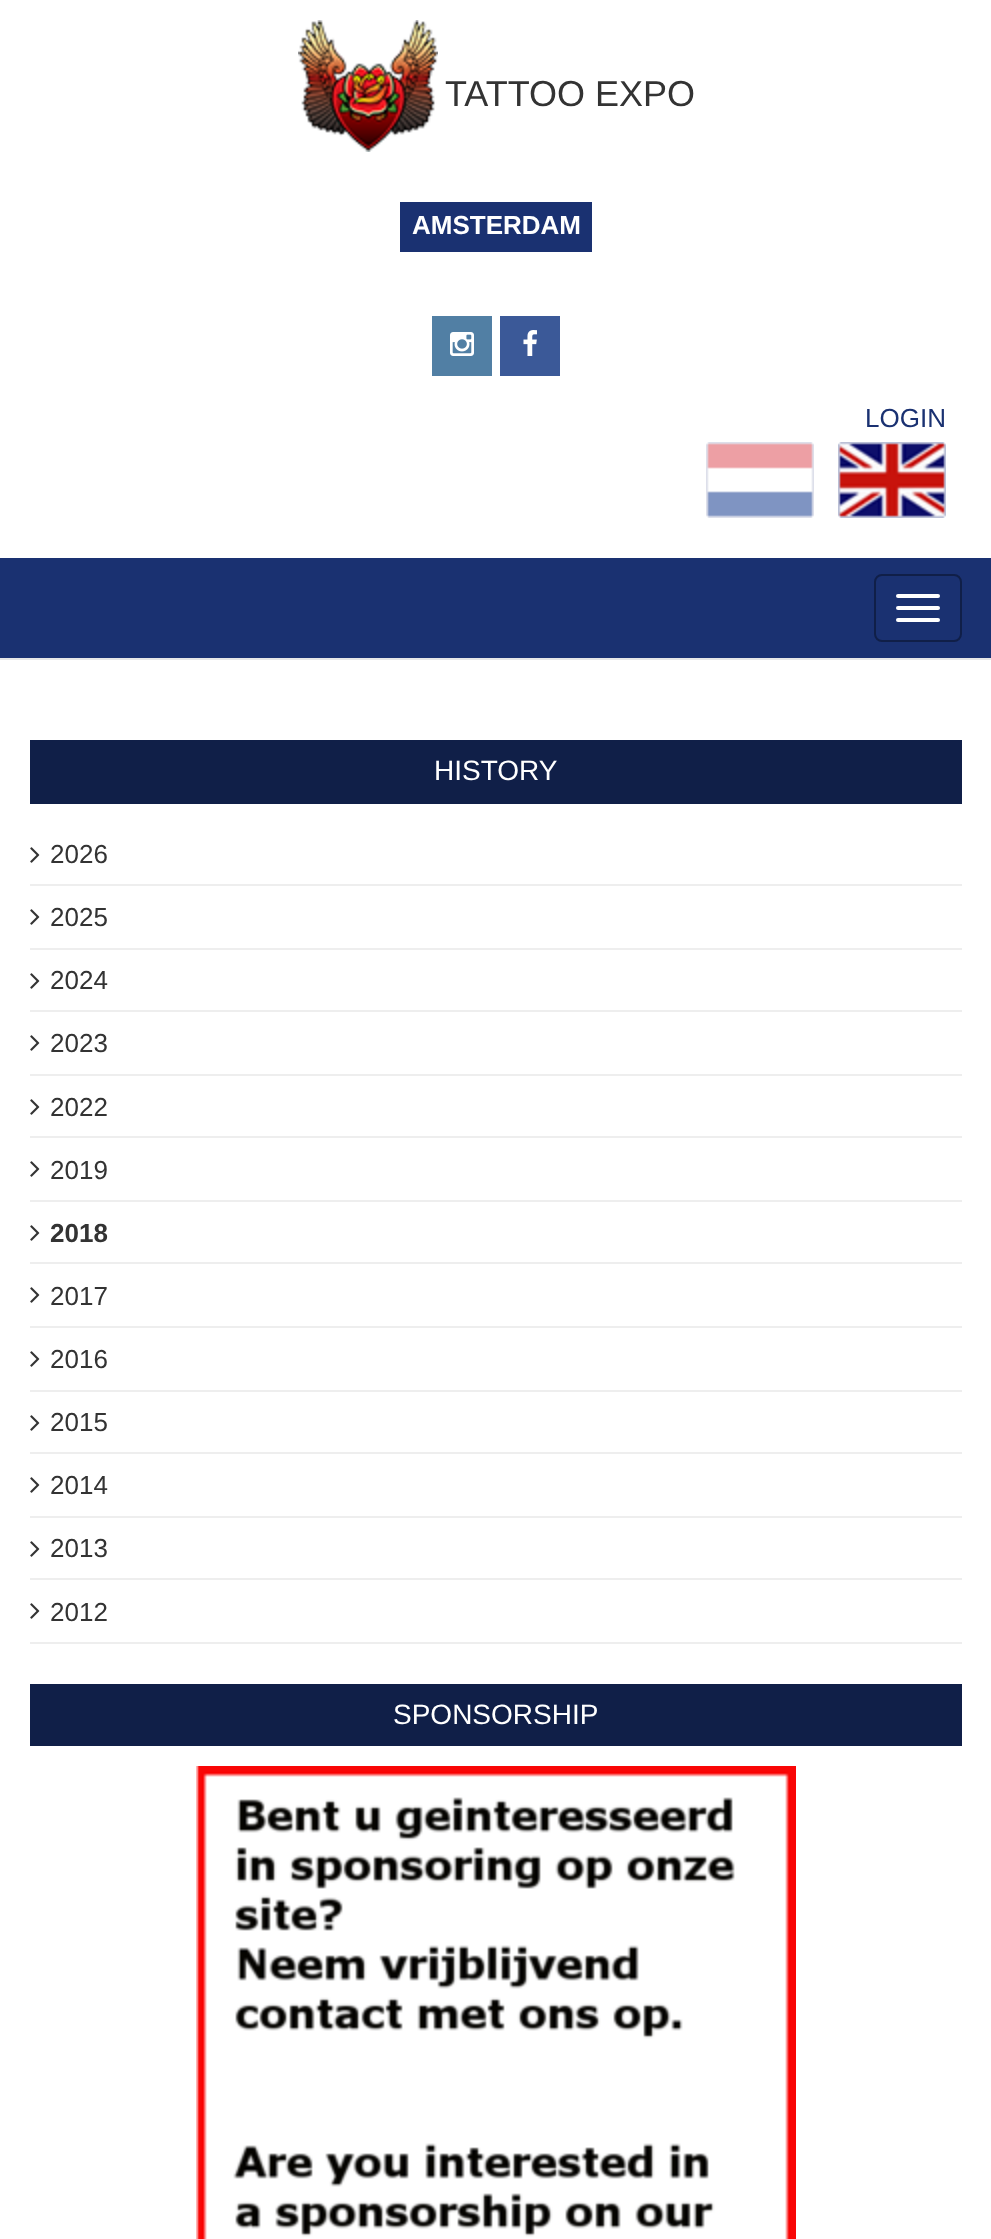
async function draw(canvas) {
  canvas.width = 991
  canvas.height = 2239
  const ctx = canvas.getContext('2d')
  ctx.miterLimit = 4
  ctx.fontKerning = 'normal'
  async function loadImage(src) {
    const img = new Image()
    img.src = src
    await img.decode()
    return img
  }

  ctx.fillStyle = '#fff'
  ctx.fillRect(0, 0, 991, 2239)
  ctx.drawImage(await loadImage('image0.png'), 298, 20, 140, 132)
  ctx.font = '36px Liberation Sans'
  ctx.fillStyle = '#333'
  ctx.fillText('TATTOO EXPO', 445, 106)
  ctx.fillStyle = '#1a3171'
  ctx.fillRect(400, 202, 192, 50)
  ctx.font = 'bold 26px Liberation Sans'
  ctx.fillStyle = '#fff'
  ctx.fillText('AMSTERDAM', 412, 234)
  ctx.fillStyle = '#517fa4'
  ctx.fillRect(432, 316, 60, 60)
  ctx.drawImage(await loadImage('image1.png'), 450, 332, 24, 24)
  ctx.fillStyle = '#3b5998'
  ctx.fillRect(500, 316, 60, 60)
  ctx.drawImage(await loadImage('image2.png'), 523, 330, 14, 26)
  ctx.font = '26px Liberation Sans'
  ctx.fillStyle = '#1a3171'
  ctx.fillText('LOGIN', 865, 427)
  ctx.drawImage(await loadImage('image3.png'), 706, 442, 108, 76)
  ctx.drawImage(await loadImage('image4.png'), 838, 442, 108, 76)
  ctx.fillRect(0, 558, 991, 100)
  ctx.fillStyle = '#e7e7e7'
  ctx.fillRect(0, 658, 991, 2)
  ctx.beginPath()
  ctx.roundRect(875, 575, 86, 66, 7)
  ctx.strokeStyle = '#101f48'
  ctx.lineWidth = 2
  ctx.stroke()
  ctx.fillStyle = '#fff'
  ctx.beginPath()
  ctx.roundRect(896, 594, 44, 4, 2)
  ctx.fill()
  ctx.beginPath()
  ctx.roundRect(896, 606, 44, 4, 2)
  ctx.fill()
  ctx.beginPath()
  ctx.roundRect(896, 618, 44, 4, 2)
  ctx.fill()
  ctx.fillStyle = '#101f48'
  ctx.fillRect(30, 740, 932, 64)
  ctx.font = '28px Liberation Sans'
  ctx.fillStyle = '#fff'
  ctx.fillText('HISTORY', 434, 780)
  ctx.fillStyle = '#eee'
  ctx.fillRect(30, 884, 932, 2)
  ctx.drawImage(await loadImage('image5.png'), 30, 847, 10, 16)
  ctx.font = '26px Liberation Sans'
  ctx.fillStyle = '#333'
  ctx.fillText('2026', 50, 863)
  ctx.fillStyle = '#eee'
  ctx.fillRect(30, 948, 932, 2)
  ctx.drawImage(await loadImage('image5.png'), 30, 909, 10, 16)
  ctx.fillStyle = '#333'
  ctx.fillText('2025', 50, 926)
  ctx.fillStyle = '#eee'
  ctx.fillRect(30, 1010, 932, 2)
  ctx.drawImage(await loadImage('image5.png'), 30, 973, 10, 16)
  ctx.fillStyle = '#333'
  ctx.fillText('2024', 50, 989)
  ctx.fillStyle = '#eee'
  ctx.fillRect(30, 1074, 932, 2)
  ctx.drawImage(await loadImage('image5.png'), 30, 1035, 10, 16)
  ctx.fillStyle = '#333'
  ctx.fillText('2023', 50, 1052)
  ctx.fillStyle = '#eee'
  ctx.fillRect(30, 1136, 932, 2)
  ctx.drawImage(await loadImage('image5.png'), 30, 1099, 10, 16)
  ctx.fillStyle = '#333'
  ctx.fillText('2022', 50, 1116)
  ctx.fillStyle = '#eee'
  ctx.fillRect(30, 1200, 932, 2)
  ctx.drawImage(await loadImage('image5.png'), 30, 1161, 10, 16)
  ctx.fillStyle = '#333'
  ctx.fillText('2019', 50, 1179)
  ctx.fillStyle = '#eee'
  ctx.fillRect(30, 1262, 932, 2)
  ctx.drawImage(await loadImage('image5.png'), 30, 1225, 10, 16)
  ctx.font = 'bold 26px Liberation Sans'
  ctx.fillStyle = '#333'
  ctx.fillText('2018', 50, 1242)
  ctx.fillStyle = '#eee'
  ctx.fillRect(30, 1326, 932, 2)
  ctx.drawImage(await loadImage('image5.png'), 30, 1287, 10, 16)
  ctx.font = '26px Liberation Sans'
  ctx.fillStyle = '#333'
  ctx.fillText('2017', 50, 1305)
  ctx.fillStyle = '#eee'
  ctx.fillRect(30, 1390, 932, 2)
  ctx.drawImage(await loadImage('image5.png'), 30, 1351, 10, 16)
  ctx.fillStyle = '#333'
  ctx.fillText('2016', 50, 1368)
  ctx.fillStyle = '#eee'
  ctx.fillRect(30, 1452, 932, 2)
  ctx.drawImage(await loadImage('image5.png'), 30, 1415, 10, 16)
  ctx.fillStyle = '#333'
  ctx.fillText('2015', 50, 1431)
  ctx.fillStyle = '#eee'
  ctx.fillRect(30, 1516, 932, 2)
  ctx.drawImage(await loadImage('image5.png'), 30, 1477, 10, 16)
  ctx.fillStyle = '#333'
  ctx.fillText('2014', 50, 1494)
  ctx.fillStyle = '#eee'
  ctx.fillRect(30, 1578, 932, 2)
  ctx.drawImage(await loadImage('image5.png'), 30, 1541, 10, 16)
  ctx.fillStyle = '#333'
  ctx.fillText('2013', 50, 1557)
  ctx.fillStyle = '#eee'
  ctx.fillRect(30, 1642, 932, 2)
  ctx.drawImage(await loadImage('image5.png'), 30, 1603, 10, 16)
  ctx.fillStyle = '#333'
  ctx.fillText('2012', 50, 1621)
  ctx.fillStyle = '#101f48'
  ctx.fillRect(30, 1684, 932, 62)
  ctx.font = '28px Liberation Sans'
  ctx.fillStyle = '#fff'
  ctx.fillText('SPONSORSHIP', 393, 1724)
  ctx.drawImage(await loadImage('image6.png'), 196, 1766, 600, 473)
}

draw(document.querySelector('canvas'))
